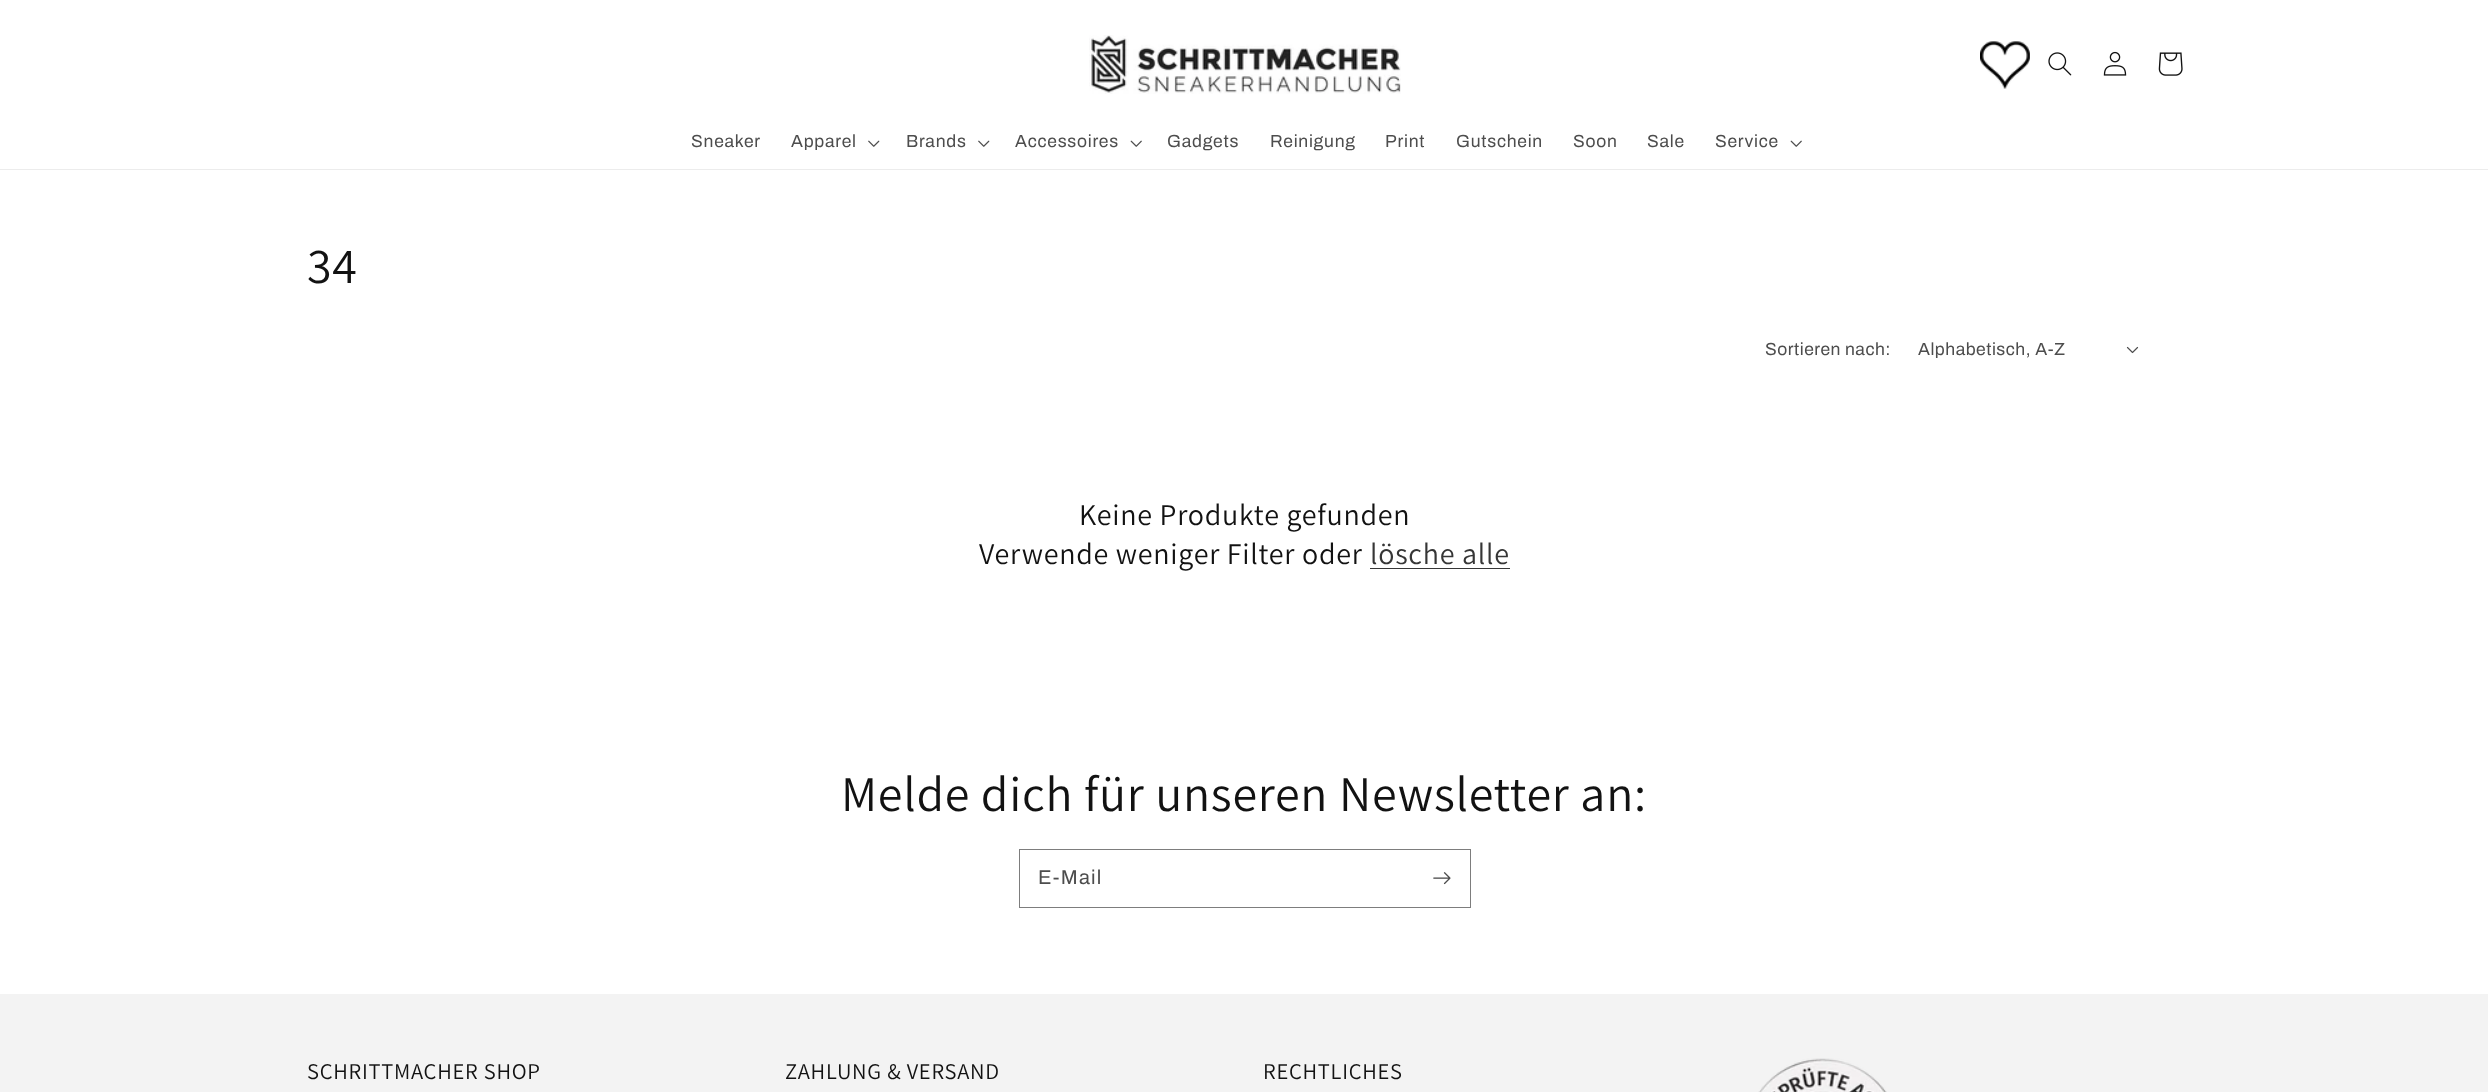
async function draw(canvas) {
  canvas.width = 2488
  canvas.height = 1092
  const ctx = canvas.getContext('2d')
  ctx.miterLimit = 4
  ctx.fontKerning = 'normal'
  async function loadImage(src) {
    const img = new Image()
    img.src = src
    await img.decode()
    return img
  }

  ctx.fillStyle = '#fff'
  ctx.fillRect(0, 0, 2488, 1092)
  ctx.fillStyle = '#ececec'
  ctx.fillRect(0, 169, 2488, 1)
  ctx.drawImage(await loadImage('image0.png'), 1089, 35, 312, 59)
  ctx.drawImage(await loadImage('image1.png'), 1980, 41, 50, 48)
  ctx.drawImage(await loadImage('image2.png'), 2048, 52, 24, 24)
  ctx.drawImage(await loadImage('image3.png'), 2103, 51, 24, 25)
  ctx.drawImage(await loadImage('image4.png'), 2158, 52, 25, 24)
  ctx.letterSpacing = '0.75px'
  ctx.font = '17.5px Archivo'
  ctx.fillStyle = '#4d4d4d'
  ctx.fillText('Sneaker', 691, 147)
  ctx.fillText('Apparel', 791, 147)
  ctx.drawImage(await loadImage('image5.png'), 868, 140, 12, 7)
  ctx.fillText('Brands', 906, 147)
  ctx.drawImage(await loadImage('image5.png'), 978, 140, 12, 7)
  ctx.fillText('Accessoires', 1015, 147)
  ctx.drawImage(await loadImage('image6.png'), 1130, 140, 12, 7)
  ctx.fillText('Gadgets', 1167, 147)
  ctx.fillText('Reinigung', 1270, 147)
  ctx.fillText('Print', 1385, 147)
  ctx.fillText('Gutschein', 1456, 147)
  ctx.fillText('Soon', 1573, 147)
  ctx.fillText('Sale', 1647, 147)
  ctx.fillText('Service', 1715, 147)
  ctx.drawImage(await loadImage('image6.png'), 1790, 140, 12, 7)
  ctx.font = '50px Assistant'
  ctx.fillStyle = '#121212'
  ctx.fillText('34', 307, 283)
  ctx.letterSpacing = '0.5px'
  ctx.font = '17.5px Archivo'
  ctx.fillStyle = '#4d4d4d'
  ctx.fillText('Sortieren nach:', 1765, 355)
  ctx.fillText('Alphabetisch, A-Z', 1918, 355)
  ctx.drawImage(await loadImage('image7.png'), 2126, 346, 13, 8)
  ctx.letterSpacing = '0.75px'
  ctx.font = '30px Assistant'
  ctx.fillStyle = '#121212'
  ctx.fillText('Keine Produkte gefunden', 1079, 525)
  ctx.fillText('Verwende weniger Filter oder', 979, 564)
  ctx.fillStyle = '#363636'
  ctx.fillText('lösche alle', 1370, 564)
  ctx.fillRect(1370, 568, 140, 1)
  ctx.font = '50px Assistant'
  ctx.fillStyle = '#121212'
  ctx.fillText('Melde dich für unseren Newsletter an:', 841, 811)
  ctx.strokeStyle = '#7d7d7d'
  ctx.strokeRect(1019.5, 849.5, 451, 58)
  ctx.letterSpacing = '1.25px'
  ctx.font = '20px Archivo'
  ctx.fillStyle = '#4d4d4d'
  ctx.fillText('E-Mail', 1038, 884)
  ctx.drawImage(await loadImage('image8.png'), 1433, 872, 18, 13)
  ctx.fillStyle = '#f3f3f3'
  ctx.fillRect(0, 994, 2488, 98)
  ctx.letterSpacing = '0.75px'
  ctx.font = '22.5px Assistant'
  ctx.fillStyle = '#121212'
  ctx.fillText('SCHRITTMACHER SHOP', 307, 1079)
  ctx.fillText('ZAHLUNG & VERSAND', 785, 1079)
  ctx.fillText('RECHTLICHES', 1263, 1079)
  ctx.drawImage(await loadImage('image9.png'), 1758, 1058, 129, 34)
}

draw(document.querySelector('canvas'))
